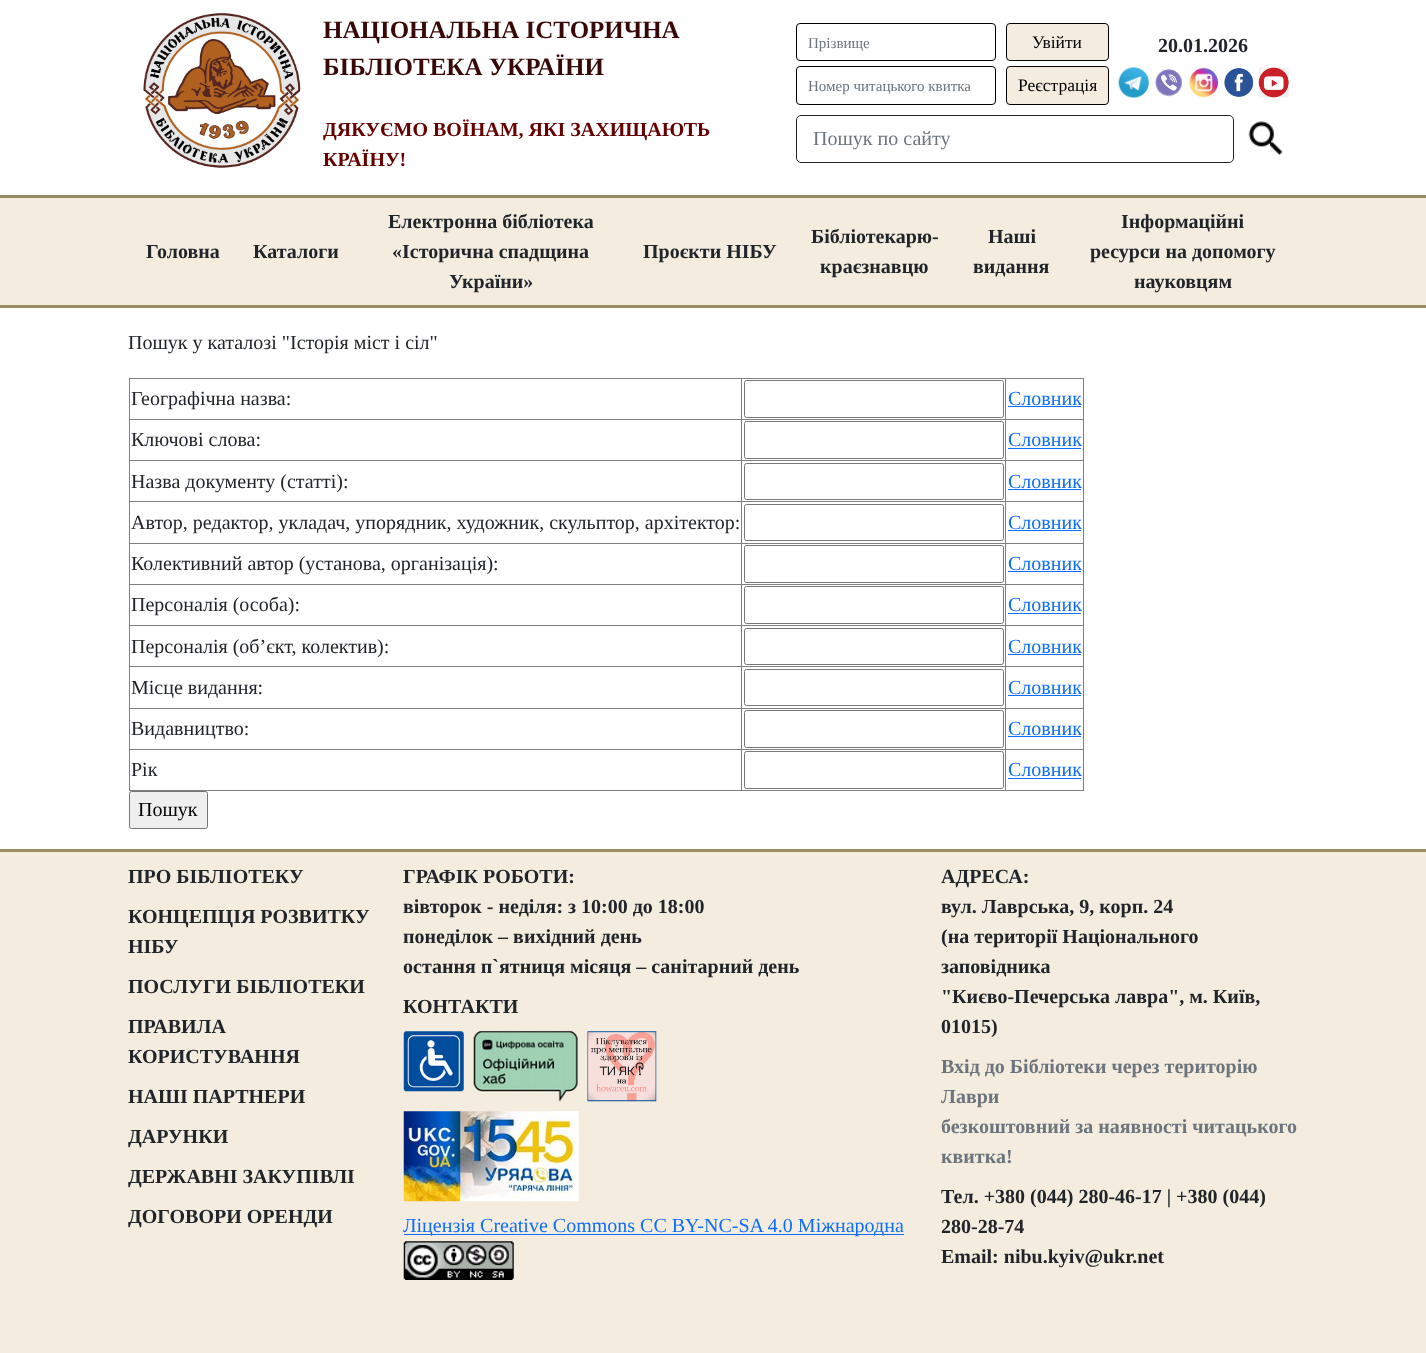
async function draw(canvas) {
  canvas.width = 1426
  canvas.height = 1353
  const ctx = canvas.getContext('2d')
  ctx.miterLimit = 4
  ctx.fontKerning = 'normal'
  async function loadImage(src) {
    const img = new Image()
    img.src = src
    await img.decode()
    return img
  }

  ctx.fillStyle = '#fff'
  ctx.fillRect(0, 0, 1426, 1353)
  ctx.drawImage(await loadImage('image0.png'), 143, 13, 158, 155)
  ctx.font = 'bold 25px Liberation Serif'
  ctx.fillStyle = '#380808'
  ctx.fillText('НАЦІОНАЛЬНА ІСТОРИЧНА', 323, 38)
  ctx.fillText('БІБЛІОТЕКА УКРАЇНИ', 323, 75)
  ctx.font = 'bold 20px Liberation Serif'
  ctx.fillStyle = '#600'
  ctx.fillText('ДЯКУЄМО ВОЇНАМ, ЯКІ ЗАХИЩАЮТЬ', 323, 136)
  ctx.fillText('КРАЇНУ!', 323, 166)
  ctx.beginPath()
  ctx.roundRect(796.5, 23.5, 199, 37, 3.5)
  ctx.strokeStyle = '#000'
  ctx.stroke()
  ctx.font = '15px Liberation Serif'
  ctx.fillStyle = '#6c757d'
  ctx.fillText('Прізвище', 808, 48)
  ctx.beginPath()
  ctx.roundRect(796.5, 66.5, 199, 38, 3.5)
  ctx.stroke()
  ctx.fillText('Номер читацького квитка', 808, 91)
  ctx.fillStyle = '#f4ecdf'
  ctx.beginPath()
  ctx.roundRect(1006.5, 23.5, 102, 37, 3.5)
  ctx.fill()
  ctx.stroke()
  ctx.font = '17.5px Liberation Serif'
  ctx.fillStyle = '#000'
  ctx.fillText('Увійти', 1032, 48)
  ctx.fillStyle = '#f4ecdf'
  ctx.beginPath()
  ctx.roundRect(1006.5, 66.5, 102, 38, 3.5)
  ctx.fill()
  ctx.stroke()
  ctx.fillStyle = '#000'
  ctx.fillText('Реєстрація', 1018, 91)
  ctx.font = 'bold 20px Liberation Serif'
  ctx.fillStyle = '#212529'
  ctx.fillText('20.01.2026', 1158, 52)
  ctx.drawImage(await loadImage('image1.png'), 1118, 67, 31, 31)
  ctx.drawImage(await loadImage('image2.png'), 1155, 69, 27, 28)
  ctx.drawImage(await loadImage('image3.png'), 1189, 67, 30, 31)
  ctx.drawImage(await loadImage('image4.png'), 1224, 68, 30, 29)
  ctx.drawImage(await loadImage('image5.png'), 1258, 67, 31, 31)
  ctx.beginPath()
  ctx.roundRect(796.5, 115.5, 437, 47, 4.5)
  ctx.strokeStyle = '#212529'
  ctx.stroke()
  ctx.font = '20px Liberation Serif'
  ctx.fillStyle = '#6c757d'
  ctx.fillText('Пошук по сайту', 813, 145)
  ctx.drawImage(await loadImage('image6.png'), 1248, 121, 35, 35)
  ctx.fillStyle = '#f4ecdf'
  ctx.fillRect(0, 198, 1426, 107)
  ctx.fillStyle = '#968d62'
  ctx.fillRect(0, 195, 1426, 3)
  ctx.fillRect(0, 305, 1426, 3)
  ctx.font = 'bold 20px Liberation Serif'
  ctx.fillStyle = '#212529'
  ctx.fillText('Головна', 146, 258)
  ctx.fillText('Каталоги', 253, 258)
  ctx.fillText('Електронна бібліотека', 388, 228)
  ctx.fillText('«Історична спадщина', 392, 258)
  ctx.fillText('України»', 449, 288)
  ctx.fillText('Проєкти НІБУ', 643, 258)
  ctx.fillText('Бібліотекарю-', 811, 243)
  ctx.fillText('краєзнавцю', 820, 273)
  ctx.fillText('Наші', 988, 243)
  ctx.fillText('видання', 973, 273)
  ctx.fillText('Інформаційні', 1121, 228)
  ctx.fillText('ресурси на допомогу', 1090, 258)
  ctx.fillText('науковцям', 1134, 288)
  ctx.font = '20px Liberation Serif'
  ctx.fillText('Пошук у каталозі "Історія міст і сіл"', 128, 349)
  ctx.fillStyle = '#808080'
  ctx.fillRect(129, 378, 955, 1)
  ctx.fillRect(1083, 378, 1, 413)
  ctx.fillRect(129, 790, 955, 1)
  ctx.fillRect(129, 378, 1, 413)
  ctx.fillStyle = '#212529'
  ctx.fillText('Географічна назва:', 131, 405)
  ctx.beginPath()
  ctx.roundRect(744.5, 380.5, 259, 37, 2)
  ctx.strokeStyle = '#767676'
  ctx.stroke()
  ctx.fillStyle = '#0d6efd'
  ctx.fillText('Словник', 1008, 405)
  ctx.fillRect(1008, 406, 73, 1)
  ctx.fillStyle = '#808080'
  ctx.fillRect(129, 419, 955, 1)
  ctx.fillStyle = '#212529'
  ctx.fillText('Ключові слова:', 131, 446)
  ctx.beginPath()
  ctx.roundRect(744.5, 421.5, 259, 37, 2)
  ctx.stroke()
  ctx.fillStyle = '#0d6efd'
  ctx.fillText('Словник', 1008, 446)
  ctx.fillRect(1008, 448, 73, 1)
  ctx.fillStyle = '#808080'
  ctx.fillRect(129, 460, 955, 1)
  ctx.fillStyle = '#212529'
  ctx.fillText('Назва документу (статті):', 131, 488)
  ctx.beginPath()
  ctx.roundRect(744.5, 463.5, 259, 36, 2)
  ctx.stroke()
  ctx.fillStyle = '#0d6efd'
  ctx.fillText('Словник', 1008, 488)
  ctx.fillRect(1008, 489, 73, 1)
  ctx.fillStyle = '#808080'
  ctx.fillRect(129, 501, 955, 1)
  ctx.fillStyle = '#212529'
  ctx.fillText('Автор, редактор, укладач, упорядник, художник, скульптор, архітектор:', 131, 529)
  ctx.beginPath()
  ctx.roundRect(744.5, 504.5, 259, 36, 2)
  ctx.stroke()
  ctx.fillStyle = '#0d6efd'
  ctx.fillText('Словник', 1008, 529)
  ctx.fillRect(1008, 530, 73, 1)
  ctx.fillStyle = '#808080'
  ctx.fillRect(129, 543, 955, 1)
  ctx.fillStyle = '#212529'
  ctx.fillText('Колективний автор (установа, організація):', 131, 570)
  ctx.beginPath()
  ctx.roundRect(744.5, 545.5, 259, 37, 2)
  ctx.stroke()
  ctx.fillStyle = '#0d6efd'
  ctx.fillText('Словник', 1008, 570)
  ctx.fillRect(1008, 571, 73, 1)
  ctx.fillStyle = '#808080'
  ctx.fillRect(129, 584, 955, 1)
  ctx.fillStyle = '#212529'
  ctx.fillText('Персоналія (особа):', 131, 611)
  ctx.beginPath()
  ctx.roundRect(744.5, 586.5, 259, 37, 2)
  ctx.stroke()
  ctx.fillStyle = '#0d6efd'
  ctx.fillText('Словник', 1008, 611)
  ctx.fillRect(1008, 613, 73, 1)
  ctx.fillStyle = '#808080'
  ctx.fillRect(129, 625, 955, 1)
  ctx.fillStyle = '#212529'
  ctx.fillText('Персоналія (об’єкт, колектив):', 131, 653)
  ctx.beginPath()
  ctx.roundRect(744.5, 628.5, 259, 36, 2)
  ctx.stroke()
  ctx.fillStyle = '#0d6efd'
  ctx.fillText('Словник', 1008, 653)
  ctx.fillRect(1008, 654, 73, 1)
  ctx.fillStyle = '#808080'
  ctx.fillRect(129, 666, 955, 1)
  ctx.fillStyle = '#212529'
  ctx.fillText('Місце видання:', 131, 694)
  ctx.beginPath()
  ctx.roundRect(744.5, 669.5, 259, 36, 2)
  ctx.stroke()
  ctx.fillStyle = '#0d6efd'
  ctx.fillText('Словник', 1008, 694)
  ctx.fillRect(1008, 695, 73, 1)
  ctx.fillStyle = '#808080'
  ctx.fillRect(129, 708, 955, 1)
  ctx.fillStyle = '#212529'
  ctx.fillText('Видавництво:', 131, 735)
  ctx.beginPath()
  ctx.roundRect(744.5, 710.5, 259, 37, 2)
  ctx.stroke()
  ctx.fillStyle = '#0d6efd'
  ctx.fillText('Словник', 1008, 735)
  ctx.fillRect(1008, 736, 73, 1)
  ctx.fillStyle = '#808080'
  ctx.fillRect(129, 749, 955, 1)
  ctx.fillStyle = '#212529'
  ctx.fillText('Рік', 131, 776)
  ctx.fillStyle = '#808080'
  ctx.fillRect(741, 378, 1, 413)
  ctx.beginPath()
  ctx.roundRect(744.5, 751.5, 259, 37, 2)
  ctx.stroke()
  ctx.fillRect(1005, 378, 1, 413)
  ctx.fillStyle = '#0d6efd'
  ctx.fillText('Словник', 1008, 776)
  ctx.fillRect(1008, 778, 73, 1)
  ctx.fillStyle = '#efefef'
  ctx.beginPath()
  ctx.roundRect(129.5, 791.5, 78, 37, 2)
  ctx.fill()
  ctx.stroke()
  ctx.fillStyle = '#000'
  ctx.fillText('Пошук', 138, 816)
  ctx.fillStyle = '#f4ecdf'
  ctx.fillRect(0, 852, 1426, 501)
  ctx.fillStyle = '#968d62'
  ctx.fillRect(0, 849, 1426, 3)
  ctx.font = 'bold 20px Liberation Serif'
  ctx.fillStyle = '#212529'
  ctx.fillText('ПРО БІБЛІОТЕКУ', 128, 883)
  ctx.fillText('КОНЦЕПЦІЯ РОЗВИТКУ', 128, 923)
  ctx.fillText('НІБУ', 128, 953)
  ctx.fillText('ПОСЛУГИ БІБЛІОТЕКИ', 128, 993)
  ctx.fillText('ПРАВИЛА', 128, 1033)
  ctx.fillText('КОРИСТУВАННЯ', 128, 1063)
  ctx.fillText('НАШІ ПАРТНЕРИ', 128, 1103)
  ctx.fillText('ДАРУНКИ', 128, 1143)
  ctx.fillText('ДЕРЖАВНІ ЗАКУПІВЛІ', 128, 1183)
  ctx.fillText('ДОГОВОРИ ОРЕНДИ', 128, 1223)
  ctx.fillText('ГРАФІК РОБОТИ:', 403, 883)
  ctx.fillText('вівторок - неділя: з 10:00 до 18:00', 403, 913)
  ctx.fillText('понеділок – вихідний день', 403, 943)
  ctx.fillText('остання п`ятниця місяця – санітарний день', 403, 973)
  ctx.fillText('КОНТАКТИ', 403, 1013)
  ctx.drawImage(await loadImage('image7.png'), 403, 1031, 61, 61)
  ctx.drawImage(await loadImage('image8.png'), 473, 1031, 105, 71)
  ctx.drawImage(await loadImage('image9.png'), 587, 1031, 70, 71)
  ctx.drawImage(await loadImage('image10.png'), 403, 1111, 176, 91)
  ctx.fillStyle = '#0d6efd'
  ctx.fillRect(404, 1234, 500, 1)
  ctx.font = '20px Liberation Serif'
  ctx.fillText('Ліцензія Creative Commons CC BY-NC-SA 4.0 Міжнародна', 403, 1232)
  ctx.drawImage(await loadImage('image11.png'), 403, 1241, 111, 39)
  ctx.font = 'bold 20px Liberation Serif'
  ctx.fillStyle = '#212529'
  ctx.fillText('АДРЕСА:', 941, 883)
  ctx.fillText('вул. Лаврська, 9, корп. 24', 941, 913)
  ctx.fillText('(на території Національного', 941, 943)
  ctx.fillText('заповідника', 941, 973)
  ctx.fillText('"Києво-Печерська лавра", м. Київ,', 941, 1003)
  ctx.fillText('01015)', 941, 1033)
  ctx.fillStyle = '#6c757d'
  ctx.fillText('Вхід до Бібліотеки через територію', 941, 1073)
  ctx.fillText('Лаври', 941, 1103)
  ctx.fillText('безкоштовний за наявності читацького', 941, 1133)
  ctx.fillText('квитка!', 941, 1163)
  ctx.fillStyle = '#212529'
  ctx.fillText('Тел. +380 (044) 280-46-17 | +380 (044)', 941, 1203)
  ctx.fillText('280-28-74', 941, 1233)
  ctx.fillText('Email: nibu.kyiv@ukr.net', 941, 1263)
}

draw(document.querySelector('canvas'))
